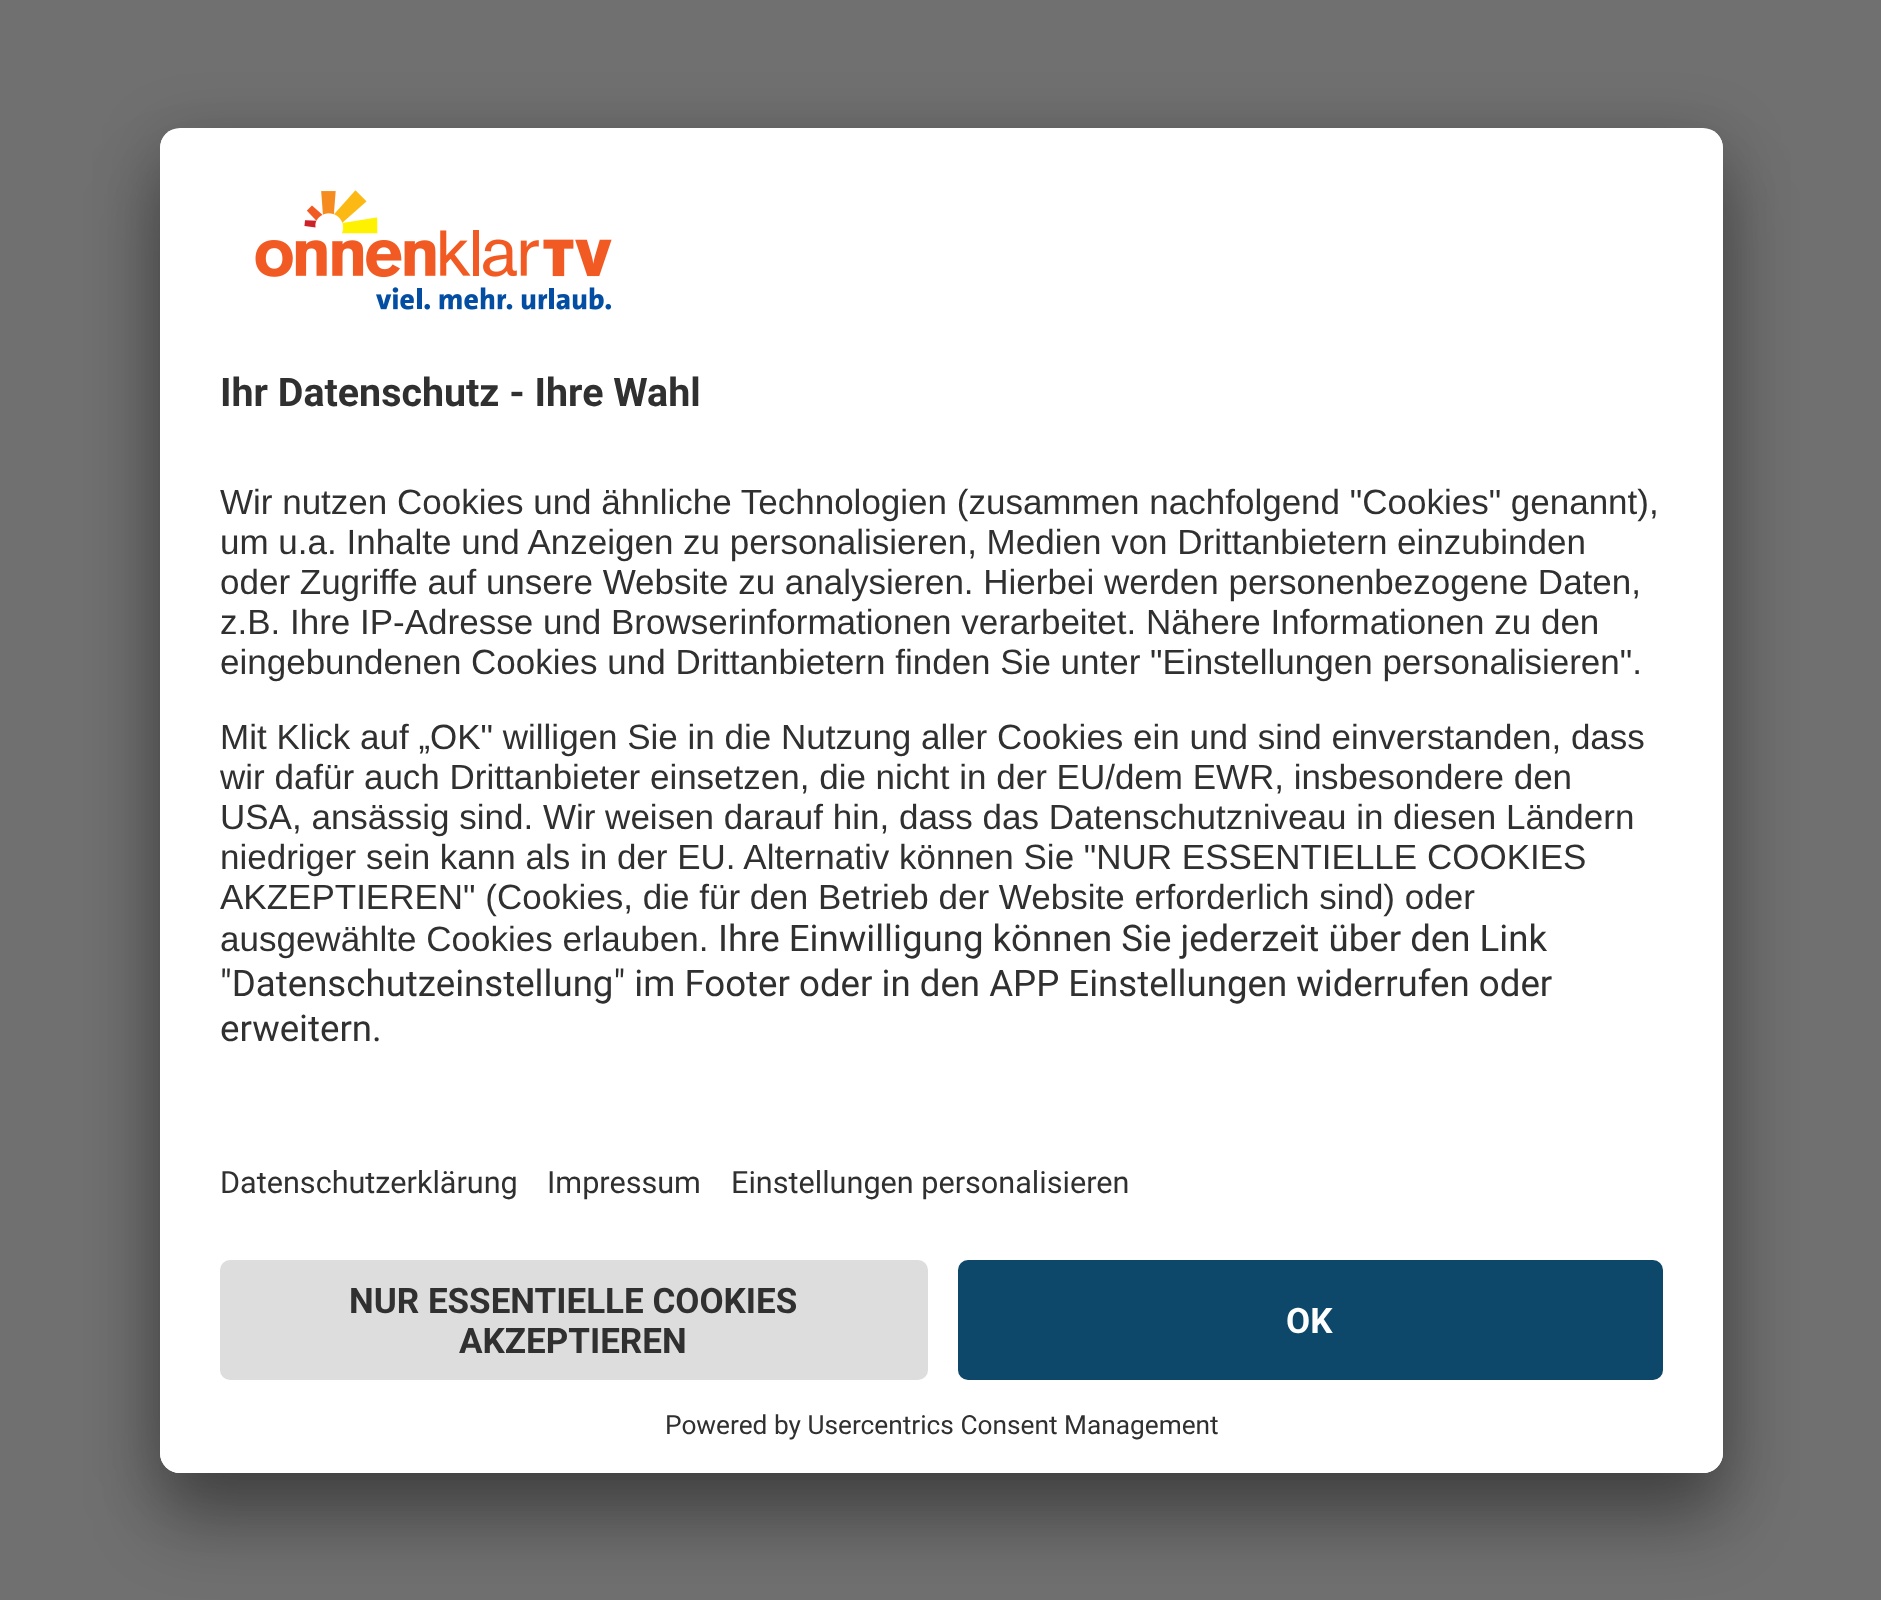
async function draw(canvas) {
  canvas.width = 1881
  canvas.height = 1600
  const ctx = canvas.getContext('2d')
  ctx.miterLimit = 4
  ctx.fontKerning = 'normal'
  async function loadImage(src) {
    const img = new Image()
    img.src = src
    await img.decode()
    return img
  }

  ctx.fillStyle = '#707070'
  ctx.fillRect(0, 0, 1881, 1600)
  ctx.fillStyle = '#0000004d'
  ctx.filter = 'blur(35px)'
  ctx.beginPath()
  ctx.roundRect(160, 178, 1563, 1345, 20)
  ctx.fill()
  ctx.filter = 'none'
  ctx.fillStyle = '#00000038'
  ctx.filter = 'blur(32.5px)'
  ctx.beginPath()
  ctx.roundRect(160, 140, 1563, 1345, 20)
  ctx.fill()
  ctx.filter = 'none'
  ctx.fillStyle = '#fff'
  ctx.beginPath()
  ctx.roundRect(160, 128, 1563, 1345, 20)
  ctx.fill()
  ctx.save()
  ctx.beginPath()
  ctx.roundRect(160, 128, 1563, 1345, 20)
  ctx.clip()
  ctx.beginPath()
  ctx.roundRect(160, 128, 1563, 1112, [20, 20, 0, 0])
  ctx.clip()
  ctx.fillRect(160, 130, 1563, 1110)
  ctx.restore()
  ctx.drawImage(await loadImage('image0.png'), 255, 190, 357, 120)
  ctx.font = 'bold 39.4px Roboto'
  ctx.fillStyle = '#303030'
  ctx.fillText('Ihr Datenschutz - Ihre Wahl', 220, 406)
  ctx.font = '35px Liberation Sans'
  ctx.fillText('Wir nutzen Cookies und ähnliche Technologien (zusammen nachfolgend "Cookies" genannt),', 220, 514)
  ctx.fillText('um u.a. Inhalte und Anzeigen zu personalisieren, Medien von Drittanbietern einzubinden', 220, 554)
  ctx.fillText('oder Zugriffe auf unsere Website zu analysieren. Hierbei werden personenbezogene Daten,', 220, 594)
  ctx.fillText('z.B. Ihre IP-Adresse und Browserinformationen verarbeitet. Nähere Informationen zu den', 220, 634)
  ctx.fillText('eingebundenen Cookies und Drittanbietern finden Sie unter "Einstellungen personalisieren".', 220, 674)
  ctx.fillText('Mit Klick auf „OK" willigen Sie in die Nutzung aller Cookies ein und sind einverstanden, dass', 220, 749)
  ctx.fillText('wir dafür auch Drittanbieter einsetzen, die nicht in der EU/dem EWR, insbesondere den', 220, 789)
  ctx.fillText('USA, ansässig sind. Wir weisen darauf hin, dass das Datenschutzniveau in diesen Ländern', 220, 829)
  ctx.fillText('niedriger sein kann als in der EU. Alternativ können Sie "NUR ESSENTIELLE COOKIES', 220, 869)
  ctx.fillText('AKZEPTIEREN" (Cookies, die für den Betrieb der Website erforderlich sind) oder', 220, 909)
  ctx.fillText('ausgewählte Cookies erlauben.', 220, 951)
  ctx.font = '36.65px Roboto'
  ctx.fillText('Ihre Einwilligung können Sie jederzeit über den Link', 718, 951)
  ctx.fillText('"Datenschutzeinstellung" im Footer oder in den APP Einstellungen widerrufen oder', 220, 996)
  ctx.fillText('erweitern.', 220, 1041)
  ctx.font = '30.6px Roboto'
  ctx.fillText('Datenschutzerklärung', 220, 1193)
  ctx.fillText('Impressum', 547, 1193)
  ctx.fillText('Einstellungen personalisieren', 731, 1193)
  ctx.fillStyle = '#fff'
  ctx.beginPath()
  ctx.roundRect(160, 1240, 1563, 233, [0, 0, 20, 20])
  ctx.fill()
  ctx.fillStyle = '#ddd'
  ctx.beginPath()
  ctx.roundRect(220, 1260, 708, 120, 10)
  ctx.fill()
  ctx.font = 'bold 35px Roboto'
  ctx.fillStyle = '#303030'
  ctx.fillText('NUR ESSENTIELLE COOKIES', 349, 1313)
  ctx.fillText('AKZEPTIEREN', 459, 1353)
  ctx.fillStyle = '#0d476a'
  ctx.beginPath()
  ctx.roundRect(958, 1260, 705, 120, 10)
  ctx.fill()
  ctx.fillStyle = '#fff'
  ctx.fillText('OK', 1286, 1333)
  ctx.font = '26.25px Roboto'
  ctx.fillStyle = '#303030'
  ctx.fillText('Powered by Usercentrics Consent Management', 665, 1434)
}

draw(document.querySelector('canvas'))
